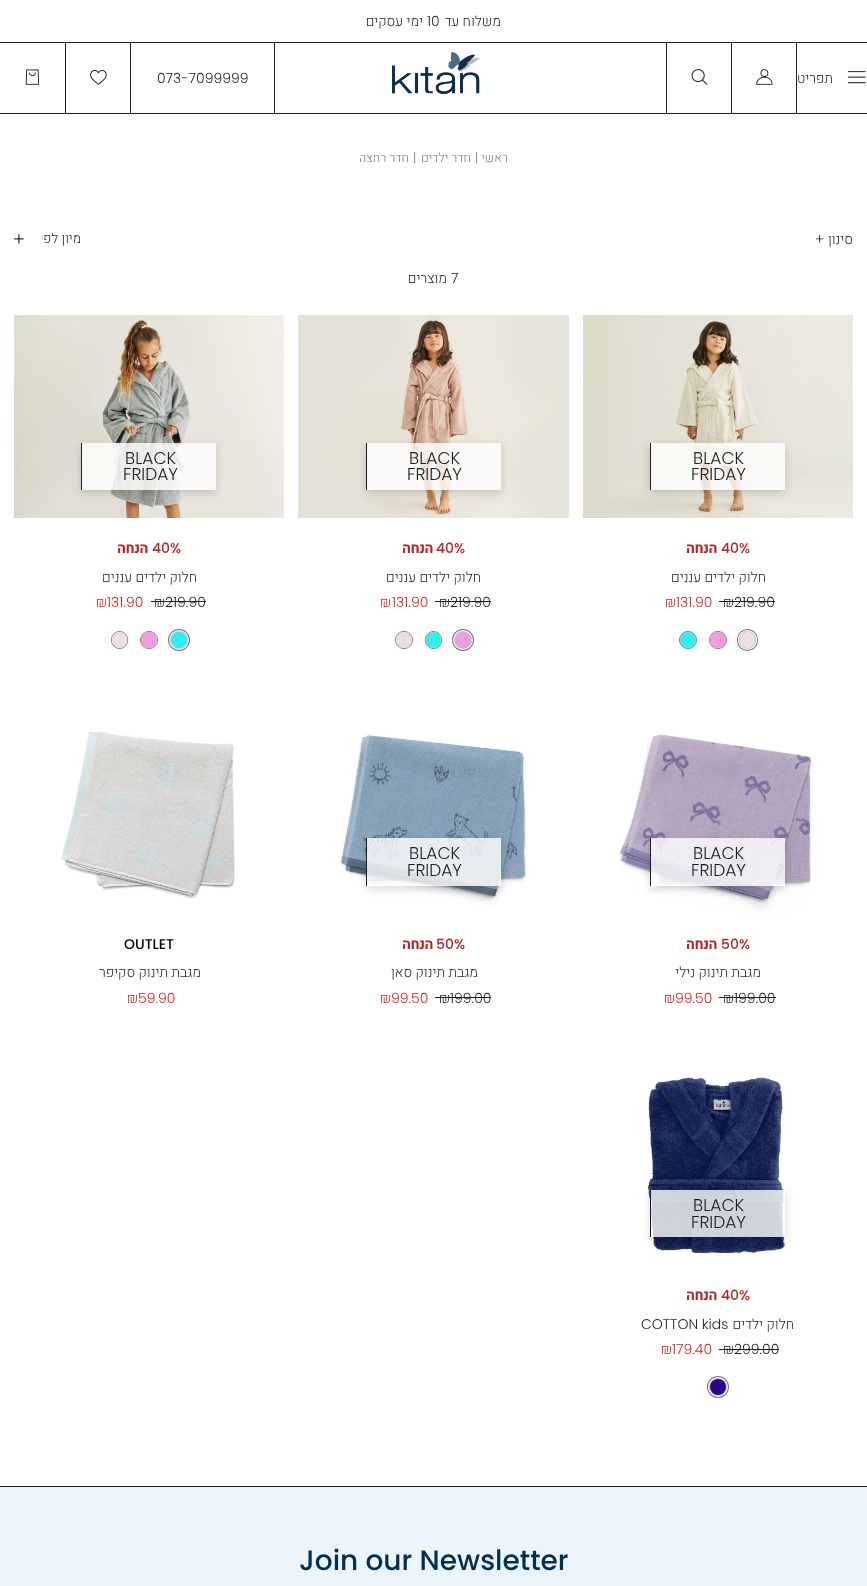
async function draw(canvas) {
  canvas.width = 867
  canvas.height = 1586
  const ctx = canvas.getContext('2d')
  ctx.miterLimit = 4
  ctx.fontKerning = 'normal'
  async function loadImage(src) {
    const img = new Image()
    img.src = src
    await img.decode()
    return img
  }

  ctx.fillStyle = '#fff'
  ctx.fillRect(0, 0, 867, 1586)
  ctx.direction = 'rtl'
  ctx.font = '300 14px Heebo'
  ctx.fillStyle = '#1e1e1e'
  ctx.fillText('ימי עסקים', 423, 26)
  ctx.direction = 'ltr'
  ctx.font = '300 14px Poppins'
  ctx.fillText('10', 427, 26)
  ctx.direction = 'rtl'
  ctx.font = '300 14px Heebo'
  ctx.fillText('משלוח עד', 501, 26)
  ctx.fillRect(0, 42, 867, 1)
  ctx.fillRect(0, 113, 867, 1)
  ctx.drawImage(await loadImage('image0.png'), 25, 69, 15, 16)
  ctx.fillRect(65, 43, 1, 70)
  ctx.drawImage(await loadImage('image1.png'), 90, 70, 17, 15)
  ctx.fillRect(130, 43, 1, 70)
  ctx.direction = 'ltr'
  ctx.font = '300 14px Poppins'
  ctx.fillText('073-7099999', 157, 83)
  ctx.fillRect(274, 43, 1, 70)
  ctx.drawImage(await loadImage('image2.png'), 391, 52, 89, 42)
  ctx.fillRect(666, 43, 1, 70)
  ctx.drawImage(await loadImage('image3.png'), 691, 69, 17, 16)
  ctx.fillRect(731, 43, 1, 70)
  ctx.drawImage(await loadImage('image4.png'), 756, 69, 17, 16)
  ctx.fillRect(796, 43, 1, 70)
  ctx.direction = 'rtl'
  ctx.font = '300 14px Heebo'
  ctx.fillText('תפריט', 833, 83)
  ctx.drawImage(await loadImage('image5.png'), 847, 71, 19, 13)
  ctx.font = '300 12.5px Heebo'
  ctx.fillStyle = '#757575'
  ctx.fillText('חדר רחצה', 409, 162)
  ctx.direction = 'ltr'
  ctx.font = '300 12.5px Poppins'
  ctx.fillText('|', 413, 162)
  ctx.direction = 'rtl'
  ctx.font = '300 12.5px Heebo'
  ctx.fillText('חדר ילדים', 471, 162)
  ctx.direction = 'ltr'
  ctx.font = '300 12.5px Poppins'
  ctx.fillText('|', 475, 162)
  ctx.direction = 'rtl'
  ctx.font = '300 12.5px Heebo'
  ctx.fillText('ראשי', 508, 162)
  ctx.drawImage(await loadImage('image6.png'), 14, 234, 10, 10)
  ctx.save()
  ctx.beginPath()
  ctx.rect(42, 229, 39, 19)
  ctx.clip()
  ctx.font = '300 13.5px Heebo'
  ctx.fillStyle = '#1e1e1e'
  ctx.fillText('מיון לפי', 81, 243)
  ctx.restore()
  ctx.direction = 'ltr'
  ctx.font = '300 14px Poppins'
  ctx.fillStyle = '#1e1e1e'
  ctx.fillText('+', 815, 244)
  ctx.direction = 'rtl'
  ctx.font = '300 14px Heebo'
  ctx.fillText('סינון', 853, 244)
  ctx.fillText('מוצרים', 447, 283)
  ctx.direction = 'ltr'
  ctx.font = '300 14px Poppins'
  ctx.fillText('7', 451, 283)
  ctx.drawImage(await loadImage('image7.png'), 14, 315, 270, 203)
  ctx.save()
  ctx.beginPath()
  ctx.moveTo(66, 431)
  ctx.lineTo(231, 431)
  ctx.lineTo(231, 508)
  ctx.lineTo(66, 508)
  ctx.closePath()
  ctx.moveTo(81, 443)
  ctx.lineTo(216, 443)
  ctx.lineTo(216, 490)
  ctx.lineTo(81, 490)
  ctx.closePath()
  ctx.clip('evenodd')
  ctx.fillStyle = '#00000026'
  ctx.filter = 'blur(4.5px)'
  ctx.beginPath()
  ctx.rect(81, 446, 135, 47)
  ctx.fill()
  ctx.filter = 'none'
  ctx.restore()
  ctx.fillStyle = '#ffffffcc'
  ctx.fillRect(82, 443, 134, 47)
  ctx.fillStyle = '#1e1e1e'
  ctx.fillRect(81, 443, 1, 47)
  ctx.font = '300 17px Poppins'
  ctx.fillText('BLACK', 125, 464)
  ctx.fillText('FRIDAY', 123, 480)
  ctx.direction = 'rtl'
  ctx.font = 'bold 14px Heebo'
  ctx.fillStyle = '#b32727'
  ctx.fillText('הנחה', 148, 553)
  ctx.direction = 'ltr'
  ctx.font = '500 14px Poppins'
  ctx.fillText('40%', 152, 553)
  ctx.direction = 'rtl'
  ctx.font = '300 14px Heebo'
  ctx.fillStyle = '#1e1e1e'
  ctx.fillText('חלוק ילדים עננים', 197, 582)
  ctx.direction = 'ltr'
  ctx.fillStyle = '#d81b1b'
  ctx.fillText('₪', 96, 607)
  ctx.font = '300 14px Poppins'
  ctx.fillText('131.90', 107, 607)
  ctx.font = '300 14px Heebo'
  ctx.fillStyle = '#1e1e1e'
  ctx.fillText('₪', 154, 607)
  ctx.font = '300 14px Poppins'
  ctx.fillText('219.90', 165, 607)
  ctx.fillRect(151, 601, 14, 1)
  ctx.fillRect(165, 601, 41, 1)
  ctx.beginPath()
  ctx.roundRect(111.5, 631.5, 16, 17, 8)
  ctx.strokeStyle = '#787878'
  ctx.stroke()
  ctx.fillStyle = '#ede0df'
  ctx.beginPath()
  ctx.roundRect(112, 632, 15, 16, 7.5)
  ctx.fill()
  ctx.beginPath()
  ctx.arc(149, 640, 8.5, 0, 2 * Math.PI)
  ctx.stroke()
  ctx.fillStyle = '#f09cdf'
  ctx.beginPath()
  ctx.arc(149, 640, 8, 0, 2 * Math.PI)
  ctx.fill()
  ctx.beginPath()
  ctx.arc(179, 640, 9.5, 0, 2 * Math.PI)
  ctx.strokeStyle = '#757575'
  ctx.lineWidth = 3
  ctx.stroke()
  ctx.beginPath()
  ctx.arc(179, 640, 9, 0, 2 * Math.PI)
  ctx.strokeStyle = '#fff'
  ctx.lineWidth = 2
  ctx.stroke()
  ctx.beginPath()
  ctx.arc(179, 640, 8.5, 0, 2 * Math.PI)
  ctx.strokeStyle = '#1e1e1e40'
  ctx.lineWidth = 1
  ctx.stroke()
  ctx.fillStyle = '#2df0f0'
  ctx.beginPath()
  ctx.arc(179, 640, 8, 0, 2 * Math.PI)
  ctx.fill()
  ctx.drawImage(await loadImage('image8.png'), 298, 315, 271, 203)
  ctx.save()
  ctx.beginPath()
  ctx.moveTo(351, 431)
  ctx.lineTo(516, 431)
  ctx.lineTo(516, 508)
  ctx.lineTo(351, 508)
  ctx.closePath()
  ctx.moveTo(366, 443)
  ctx.lineTo(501, 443)
  ctx.lineTo(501, 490)
  ctx.lineTo(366, 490)
  ctx.closePath()
  ctx.clip('evenodd')
  ctx.fillStyle = '#00000026'
  ctx.filter = 'blur(4.5px)'
  ctx.beginPath()
  ctx.rect(366, 446, 135, 47)
  ctx.fill()
  ctx.filter = 'none'
  ctx.restore()
  ctx.fillStyle = '#ffffffcc'
  ctx.fillRect(367, 443, 134, 47)
  ctx.fillStyle = '#1e1e1e'
  ctx.fillRect(366, 443, 1, 47)
  ctx.font = '300 17px Poppins'
  ctx.fillText('BLACK', 409, 464)
  ctx.fillText('FRIDAY', 407, 480)
  ctx.direction = 'rtl'
  ctx.font = 'bold 14px Heebo'
  ctx.fillStyle = '#b32727'
  ctx.fillText('הנחה', 433, 553)
  ctx.direction = 'ltr'
  ctx.font = '500 14px Poppins'
  ctx.fillText('40%', 436, 553)
  ctx.direction = 'rtl'
  ctx.font = '300 14px Heebo'
  ctx.fillStyle = '#1e1e1e'
  ctx.fillText('חלוק ילדים עננים', 481, 582)
  ctx.direction = 'ltr'
  ctx.fillStyle = '#d81b1b'
  ctx.fillText('₪', 380, 607)
  ctx.font = '300 14px Poppins'
  ctx.fillText('131.90', 392, 607)
  ctx.font = '300 14px Heebo'
  ctx.fillStyle = '#1e1e1e'
  ctx.fillText('₪', 439, 607)
  ctx.font = '300 14px Poppins'
  ctx.fillText('219.90', 450, 607)
  ctx.fillRect(435, 601, 15, 1)
  ctx.fillRect(450, 601, 41, 1)
  ctx.beginPath()
  ctx.arc(404, 640, 8.5, 0, 2 * Math.PI)
  ctx.strokeStyle = '#787878'
  ctx.stroke()
  ctx.fillStyle = '#ede0df'
  ctx.beginPath()
  ctx.arc(404, 640, 8, 0, 2 * Math.PI)
  ctx.fill()
  ctx.beginPath()
  ctx.roundRect(425.5, 631.5, 16, 17, 8)
  ctx.stroke()
  ctx.fillStyle = '#2df0f0'
  ctx.beginPath()
  ctx.roundRect(426, 632, 15, 16, 7.5)
  ctx.fill()
  ctx.beginPath()
  ctx.arc(463, 640, 9.5, 0, 2 * Math.PI)
  ctx.strokeStyle = '#757575'
  ctx.lineWidth = 3
  ctx.stroke()
  ctx.beginPath()
  ctx.arc(463, 640, 9, 0, 2 * Math.PI)
  ctx.strokeStyle = '#fff'
  ctx.lineWidth = 2
  ctx.stroke()
  ctx.beginPath()
  ctx.arc(463, 640, 8.5, 0, 2 * Math.PI)
  ctx.strokeStyle = '#1e1e1e40'
  ctx.lineWidth = 1
  ctx.stroke()
  ctx.fillStyle = '#f09cdf'
  ctx.beginPath()
  ctx.arc(463, 640, 8, 0, 2 * Math.PI)
  ctx.fill()
  ctx.drawImage(await loadImage('image9.png'), 583, 315, 270, 203)
  ctx.save()
  ctx.beginPath()
  ctx.moveTo(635, 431)
  ctx.lineTo(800, 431)
  ctx.lineTo(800, 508)
  ctx.lineTo(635, 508)
  ctx.closePath()
  ctx.moveTo(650, 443)
  ctx.lineTo(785, 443)
  ctx.lineTo(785, 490)
  ctx.lineTo(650, 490)
  ctx.closePath()
  ctx.clip('evenodd')
  ctx.fillStyle = '#00000026'
  ctx.filter = 'blur(4.5px)'
  ctx.beginPath()
  ctx.rect(650, 446, 135, 47)
  ctx.fill()
  ctx.filter = 'none'
  ctx.restore()
  ctx.fillStyle = '#ffffffcc'
  ctx.fillRect(651, 443, 134, 47)
  ctx.fillStyle = '#1e1e1e'
  ctx.fillRect(650, 443, 1, 47)
  ctx.font = '300 17px Poppins'
  ctx.fillText('BLACK', 693, 464)
  ctx.fillText('FRIDAY', 691, 480)
  ctx.direction = 'rtl'
  ctx.font = 'bold 14px Heebo'
  ctx.fillStyle = '#b32727'
  ctx.fillText('הנחה', 717, 553)
  ctx.direction = 'ltr'
  ctx.font = '500 14px Poppins'
  ctx.fillText('40%', 721, 553)
  ctx.direction = 'rtl'
  ctx.font = '300 14px Heebo'
  ctx.fillStyle = '#1e1e1e'
  ctx.fillText('חלוק ילדים עננים', 766, 582)
  ctx.direction = 'ltr'
  ctx.fillStyle = '#d81b1b'
  ctx.fillText('₪', 665, 607)
  ctx.font = '300 14px Poppins'
  ctx.fillText('131.90', 676, 607)
  ctx.font = '300 14px Heebo'
  ctx.fillStyle = '#1e1e1e'
  ctx.fillText('₪', 723, 607)
  ctx.font = '300 14px Poppins'
  ctx.fillText('219.90', 734, 607)
  ctx.fillRect(719, 601, 15, 1)
  ctx.fillRect(734, 601, 41, 1)
  ctx.beginPath()
  ctx.arc(688, 640, 8.5, 0, 2 * Math.PI)
  ctx.strokeStyle = '#787878'
  ctx.stroke()
  ctx.fillStyle = '#2df0f0'
  ctx.beginPath()
  ctx.arc(688, 640, 8, 0, 2 * Math.PI)
  ctx.fill()
  ctx.beginPath()
  ctx.arc(718, 640, 8.5, 0, 2 * Math.PI)
  ctx.stroke()
  ctx.fillStyle = '#f09cdf'
  ctx.beginPath()
  ctx.arc(718, 640, 8, 0, 2 * Math.PI)
  ctx.fill()
  ctx.beginPath()
  ctx.roundRect(738.5, 630.5, 18, 19, 9)
  ctx.strokeStyle = '#757575'
  ctx.lineWidth = 3
  ctx.stroke()
  ctx.beginPath()
  ctx.roundRect(739, 631, 17, 18, 8.5)
  ctx.strokeStyle = '#fff'
  ctx.lineWidth = 2
  ctx.stroke()
  ctx.beginPath()
  ctx.roundRect(739.5, 631.5, 16, 17, 8)
  ctx.strokeStyle = '#1e1e1e40'
  ctx.lineWidth = 1
  ctx.stroke()
  ctx.fillStyle = '#ede0df'
  ctx.beginPath()
  ctx.roundRect(740, 632, 15, 16, 7.5)
  ctx.fill()
  ctx.drawImage(await loadImage('image10.png'), 14, 711, 270, 203)
  ctx.font = '500 14px Poppins'
  ctx.fillStyle = '#000'
  ctx.fillText('OUTLET', 124, 949)
  ctx.direction = 'rtl'
  ctx.font = '300 14px Heebo'
  ctx.fillStyle = '#1e1e1e'
  ctx.fillText('מגבת תינוק סקיפר', 201, 977)
  ctx.direction = 'ltr'
  ctx.fillStyle = '#d81b1b'
  ctx.fillText('₪', 127, 1003)
  ctx.font = '300 14px Poppins'
  ctx.fillText('59.90', 138, 1003)
  ctx.drawImage(await loadImage('image11.png'), 298, 711, 271, 203)
  ctx.save()
  ctx.beginPath()
  ctx.moveTo(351, 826)
  ctx.lineTo(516, 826)
  ctx.lineTo(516, 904)
  ctx.lineTo(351, 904)
  ctx.closePath()
  ctx.moveTo(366, 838)
  ctx.lineTo(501, 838)
  ctx.lineTo(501, 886)
  ctx.lineTo(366, 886)
  ctx.closePath()
  ctx.clip('evenodd')
  ctx.fillStyle = '#00000026'
  ctx.filter = 'blur(4.5px)'
  ctx.beginPath()
  ctx.rect(366, 841, 135, 48)
  ctx.fill()
  ctx.filter = 'none'
  ctx.restore()
  ctx.fillStyle = '#ffffffcc'
  ctx.fillRect(367, 838, 134, 48)
  ctx.fillStyle = '#1e1e1e'
  ctx.fillRect(366, 838, 1, 48)
  ctx.font = '300 17px Poppins'
  ctx.fillText('BLACK', 409, 859)
  ctx.fillText('FRIDAY', 407, 876)
  ctx.direction = 'rtl'
  ctx.font = 'bold 14px Heebo'
  ctx.fillStyle = '#b32727'
  ctx.fillText('הנחה', 433, 949)
  ctx.direction = 'ltr'
  ctx.font = '500 14px Poppins'
  ctx.fillText('50%', 436, 949)
  ctx.direction = 'rtl'
  ctx.font = '300 14px Heebo'
  ctx.fillStyle = '#1e1e1e'
  ctx.fillText('מגבת תינוק סאן', 478, 977)
  ctx.direction = 'ltr'
  ctx.fillStyle = '#d81b1b'
  ctx.fillText('₪', 380, 1003)
  ctx.font = '300 14px Poppins'
  ctx.fillText('99.50', 391, 1003)
  ctx.font = '300 14px Heebo'
  ctx.fillStyle = '#1e1e1e'
  ctx.fillText('₪', 439, 1003)
  ctx.font = '300 14px Poppins'
  ctx.fillText('199.00', 450, 1003)
  ctx.fillRect(435, 997, 15, 1)
  ctx.fillRect(450, 997, 41, 1)
  ctx.drawImage(await loadImage('image12.png'), 583, 711, 270, 203)
  ctx.save()
  ctx.beginPath()
  ctx.moveTo(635, 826)
  ctx.lineTo(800, 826)
  ctx.lineTo(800, 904)
  ctx.lineTo(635, 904)
  ctx.closePath()
  ctx.moveTo(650, 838)
  ctx.lineTo(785, 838)
  ctx.lineTo(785, 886)
  ctx.lineTo(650, 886)
  ctx.closePath()
  ctx.clip('evenodd')
  ctx.fillStyle = '#00000026'
  ctx.filter = 'blur(4.5px)'
  ctx.beginPath()
  ctx.rect(650, 841, 135, 48)
  ctx.fill()
  ctx.filter = 'none'
  ctx.restore()
  ctx.fillStyle = '#ffffffcc'
  ctx.fillRect(651, 838, 134, 48)
  ctx.fillStyle = '#1e1e1e'
  ctx.fillRect(650, 838, 1, 48)
  ctx.font = '300 17px Poppins'
  ctx.fillText('BLACK', 693, 859)
  ctx.fillText('FRIDAY', 691, 876)
  ctx.direction = 'rtl'
  ctx.font = 'bold 14px Heebo'
  ctx.fillStyle = '#b32727'
  ctx.fillText('הנחה', 717, 949)
  ctx.direction = 'ltr'
  ctx.font = '500 14px Poppins'
  ctx.fillText('50%', 721, 949)
  ctx.direction = 'rtl'
  ctx.font = '300 14px Heebo'
  ctx.fillStyle = '#1e1e1e'
  ctx.fillText('מגבת תינוק נילי', 761, 977)
  ctx.direction = 'ltr'
  ctx.fillStyle = '#d81b1b'
  ctx.fillText('₪', 664, 1003)
  ctx.font = '300 14px Poppins'
  ctx.fillText('99.50', 675, 1003)
  ctx.font = '300 14px Heebo'
  ctx.fillStyle = '#1e1e1e'
  ctx.fillText('₪', 723, 1003)
  ctx.font = '300 14px Poppins'
  ctx.fillText('199.00', 734, 1003)
  ctx.fillRect(719, 997, 15, 1)
  ctx.fillRect(734, 997, 42, 1)
  ctx.drawImage(await loadImage('image13.png'), 583, 1063, 270, 202)
  ctx.save()
  ctx.beginPath()
  ctx.moveTo(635, 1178)
  ctx.lineTo(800, 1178)
  ctx.lineTo(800, 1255)
  ctx.lineTo(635, 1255)
  ctx.closePath()
  ctx.moveTo(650, 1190)
  ctx.lineTo(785, 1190)
  ctx.lineTo(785, 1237)
  ctx.lineTo(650, 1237)
  ctx.closePath()
  ctx.clip('evenodd')
  ctx.fillStyle = '#00000026'
  ctx.filter = 'blur(4.5px)'
  ctx.beginPath()
  ctx.rect(650, 1193, 135, 47)
  ctx.fill()
  ctx.filter = 'none'
  ctx.restore()
  ctx.fillStyle = '#ffffffcc'
  ctx.fillRect(651, 1190, 134, 47)
  ctx.fillStyle = '#1e1e1e'
  ctx.fillRect(650, 1190, 1, 47)
  ctx.font = '300 17px Poppins'
  ctx.fillText('BLACK', 693, 1211)
  ctx.fillText('FRIDAY', 691, 1228)
  ctx.direction = 'rtl'
  ctx.font = 'bold 14px Heebo'
  ctx.fillStyle = '#b32727'
  ctx.fillText('הנחה', 717, 1300)
  ctx.direction = 'ltr'
  ctx.font = '500 14px Poppins'
  ctx.fillText('40%', 721, 1300)
  ctx.font = '300 14px Poppins'
  ctx.fillStyle = '#1e1e1e'
  ctx.fillText('COTTON kids', 641, 1329)
  ctx.direction = 'rtl'
  ctx.font = '300 14px Heebo'
  ctx.fillText('חלוק ילדים', 794, 1329)
  ctx.direction = 'ltr'
  ctx.fillStyle = '#d81b1b'
  ctx.fillText('₪', 661, 1354)
  ctx.font = '300 14px Poppins'
  ctx.fillText('179.40', 672, 1354)
  ctx.font = '300 14px Heebo'
  ctx.fillStyle = '#1e1e1e'
  ctx.fillText('₪', 723, 1354)
  ctx.fillRect(719, 1349, 15, 1)
  ctx.font = '300 14px Poppins'
  ctx.fillText('299.00', 734, 1354)
  ctx.fillRect(734, 1349, 45, 1)
  ctx.beginPath()
  ctx.arc(718, 1387, 9.5, 0, 2 * Math.PI)
  ctx.strokeStyle = '#757575'
  ctx.lineWidth = 3
  ctx.stroke()
  ctx.beginPath()
  ctx.arc(718, 1387, 9, 0, 2 * Math.PI)
  ctx.strokeStyle = '#fff'
  ctx.lineWidth = 2
  ctx.stroke()
  ctx.beginPath()
  ctx.arc(718, 1387, 8.5, 0, 2 * Math.PI)
  ctx.strokeStyle = '#1e1e1e40'
  ctx.lineWidth = 1
  ctx.stroke()
  ctx.fillStyle = '#2e028f'
  ctx.beginPath()
  ctx.arc(718, 1387, 8, 0, 2 * Math.PI)
  ctx.fill()
  ctx.fillStyle = '#ebf5fb'
  ctx.fillRect(0, 1487, 867, 99)
  ctx.fillStyle = '#1e1e1e'
  ctx.fillRect(0, 1486, 867, 1)
  ctx.font = '500 28px Poppins'
  ctx.fillStyle = '#002f53'
  ctx.fillText('Join our Newsletter', 299, 1570)
}

draw(document.querySelector('canvas'))
